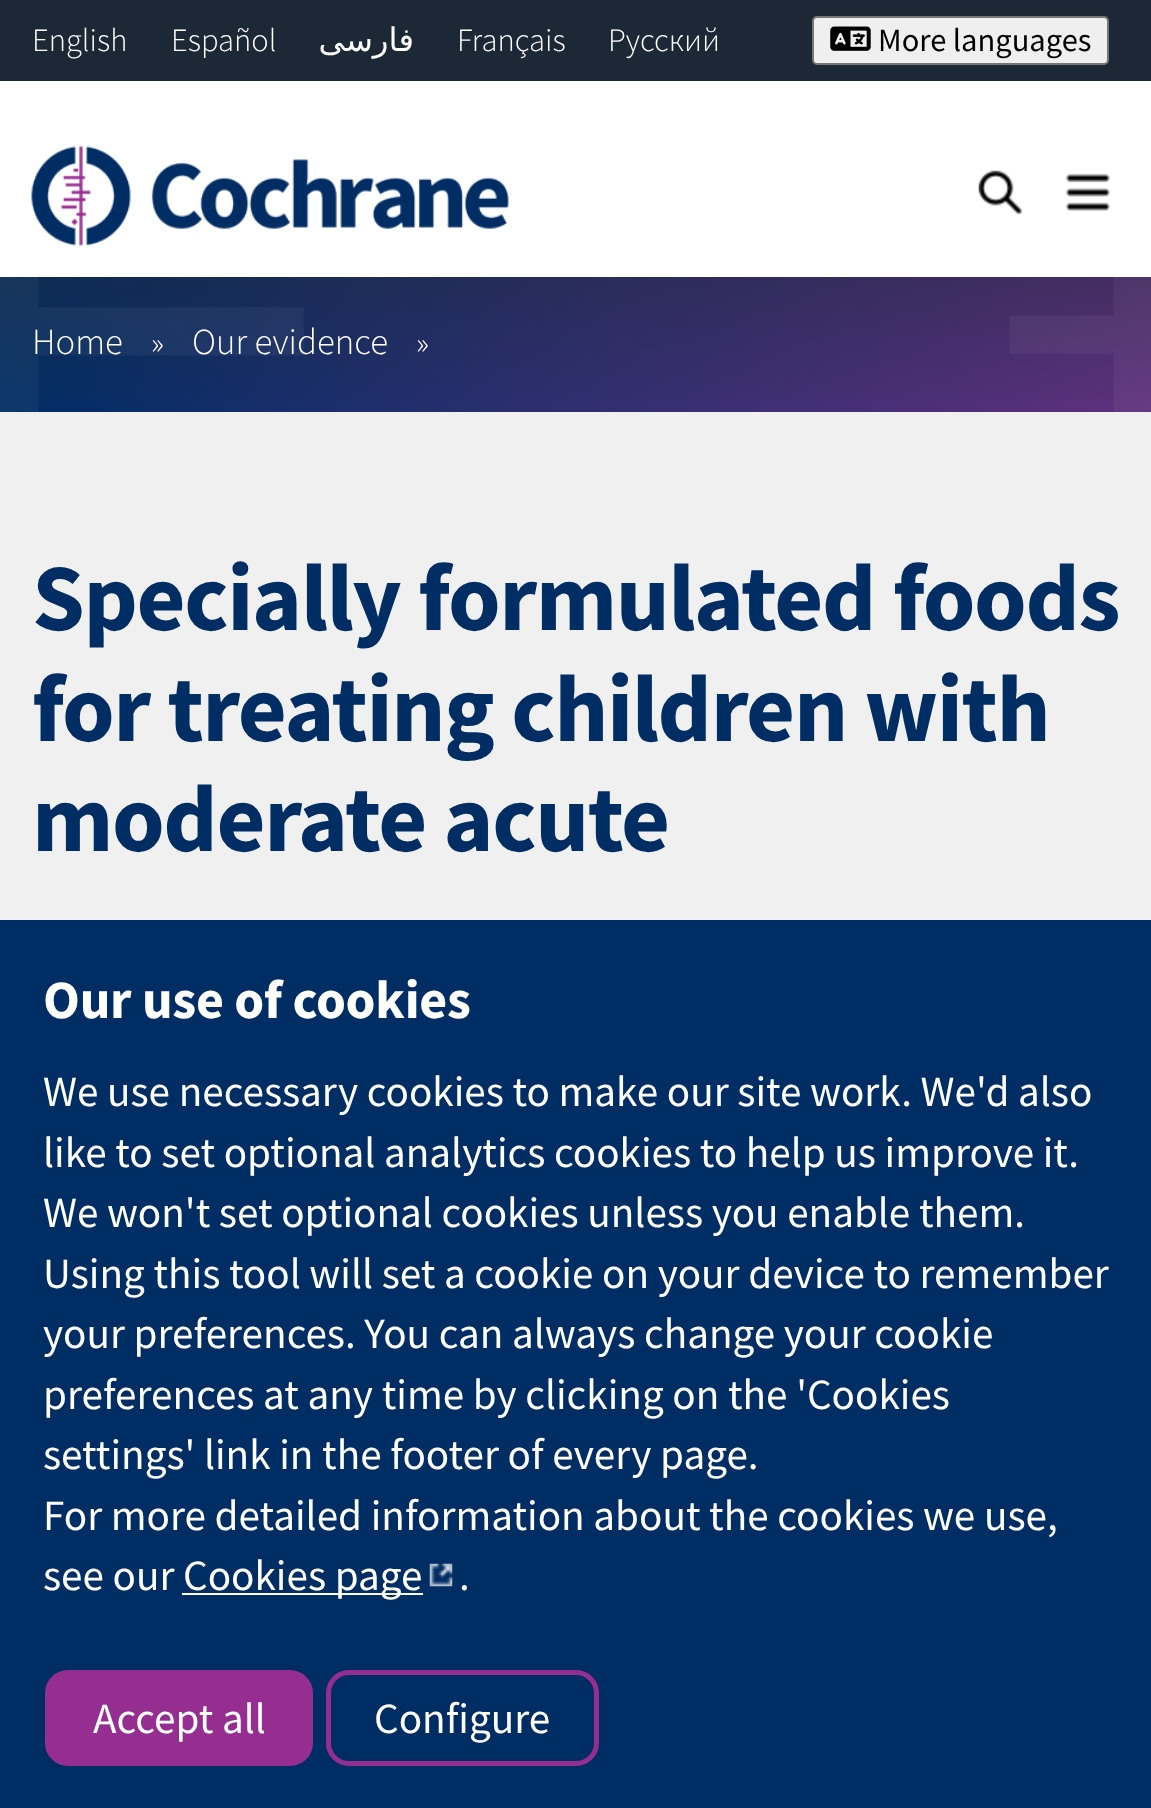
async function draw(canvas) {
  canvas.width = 1151
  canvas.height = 1808
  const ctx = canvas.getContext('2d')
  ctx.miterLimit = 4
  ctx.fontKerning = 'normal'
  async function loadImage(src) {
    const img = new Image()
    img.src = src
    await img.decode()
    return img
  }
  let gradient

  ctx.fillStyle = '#f0f0f0'
  ctx.fillRect(0, 0, 1151, 1808)
  ctx.fillStyle = '#1c2836'
  ctx.fillRect(0, 0, 1151, 81)
  ctx.fillStyle = '#fff'
  ctx.fillRect(0, 81, 1151, 196)
  ctx.font = '300 32.5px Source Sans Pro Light'
  ctx.fillText('English', 32, 51)
  ctx.fillText('Español', 171, 51)
  ctx.direction = 'rtl'
  ctx.font = '32.5px DejaVu Sans'
  ctx.fillText('فارسی', 414, 51)
  ctx.direction = 'ltr'
  ctx.font = '300 32.5px Source Sans Pro Light'
  ctx.fillText('Français', 457, 51)
  ctx.fillText('Русский', 608, 51)
  ctx.fillStyle = '#efefef'
  ctx.beginPath()
  ctx.roundRect(813, 17, 295, 47, 4)
  ctx.fill()
  ctx.strokeStyle = '#767676'
  ctx.lineWidth = 2
  ctx.stroke()
  ctx.drawImage(await loadImage('image0.png'), 830, 26, 41, 25)
  ctx.font = '32.5px Source Sans Pro'
  ctx.fillStyle = '#000'
  ctx.fillText('More languages', 878, 51)
  ctx.drawImage(await loadImage('image1.png'), 31, 145, 478, 101)
  ctx.drawImage(await loadImage('image2.png'), 978, 170, 44, 44)
  ctx.drawImage(await loadImage('image3.png'), 1065, 173, 45, 38)
  gradient = ctx.createLinearGradient(0, 344, 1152, 344)
  gradient.addColorStop(0, '#002d64')
  gradient.addColorStop(1, '#5f307d')
  ctx.fillStyle = gradient
  ctx.fillRect(0, 277, 1151, 135)
  gradient = ctx.createLinearGradient(576, 61, 576, 412)
  gradient.addColorStop(0, '#1c2836')
  gradient.addColorStop(1, '#1c283600')
  ctx.fillStyle = gradient
  ctx.fillRect(0, 277, 1151, 122)
  ctx.drawImage(await loadImage('image4.png'), 0, 277, 304, 135)
  ctx.drawImage(await loadImage('image5.png'), 1009, 277, 142, 135)
  ctx.font = '300 36.75px Source Sans Pro Light'
  ctx.fillStyle = '#fff'
  ctx.fillText('Home', 32, 354)
  ctx.font = '300 32.5px Source Sans Pro Light'
  ctx.fillText('»', 151, 354)
  ctx.font = '300 36.75px Source Sans Pro Light'
  ctx.fillText('Our evidence', 192, 354)
  ctx.font = '300 32.5px Source Sans Pro Light'
  ctx.fillText('»', 416, 354)
  ctx.letterSpacing = '-1.4px'
  ctx.font = 'bold 95px Source Sans Pro'
  ctx.fillStyle = '#002d64'
  ctx.fillText('Specially formulated foods', 32, 630)
  ctx.fillText('for treating children with', 32, 741)
  ctx.fillText('moderate acute', 32, 851)
  ctx.fillRect(0, 920, 1151, 888)
  ctx.letterSpacing = '-0.25px'
  ctx.font = 'bold 54px Source Sans Pro'
  ctx.fillStyle = '#fff'
  ctx.fillText('Our use of cookies', 43, 1018)
  ctx.letterSpacing = '0px'
  ctx.font = '43.2px Source Sans Pro'
  ctx.fillText('We use necessary cookies to make our site work. We\'d also', 43, 1106)
  ctx.fillText('like to set optional analytics cookies to help us improve it.', 43, 1167)
  ctx.fillText('We won\'t set optional cookies unless you enable them.', 43, 1227)
  ctx.fillText('Using this tool will set a cookie on your device to remember', 43, 1288)
  ctx.fillText('your preferences. You can always change your cookie', 43, 1348)
  ctx.fillText('preferences at any time by clicking on the \'Cookies', 43, 1409)
  ctx.fillText('settings\' link in the footer of every page.', 43, 1469)
  ctx.fillText('For more detailed information about the cookies we use,', 43, 1530)
  ctx.fillText('see our', 43, 1590)
  ctx.fillRect(182, 1593, 241, 2)
  ctx.fillText('Cookies page', 183, 1590)
  ctx.drawImage(await loadImage('image6.png'), 429, 1563, 24, 24)
  ctx.fillText('.', 459, 1590)
  ctx.fillStyle = '#962d91'
  ctx.beginPath()
  ctx.roundRect(47.5, 1672.5, 263, 91, 20.5)
  ctx.fill()
  ctx.strokeStyle = '#962d91'
  ctx.lineWidth = 5
  ctx.stroke()
  ctx.fillStyle = '#fff'
  ctx.fillText('Accept all', 93, 1733)
  ctx.beginPath()
  ctx.roundRect(328.5, 1672.5, 268, 91, 20.5)
  ctx.stroke()
  ctx.fillText('Configure', 374, 1733)
}

draw(document.querySelector('canvas'))
